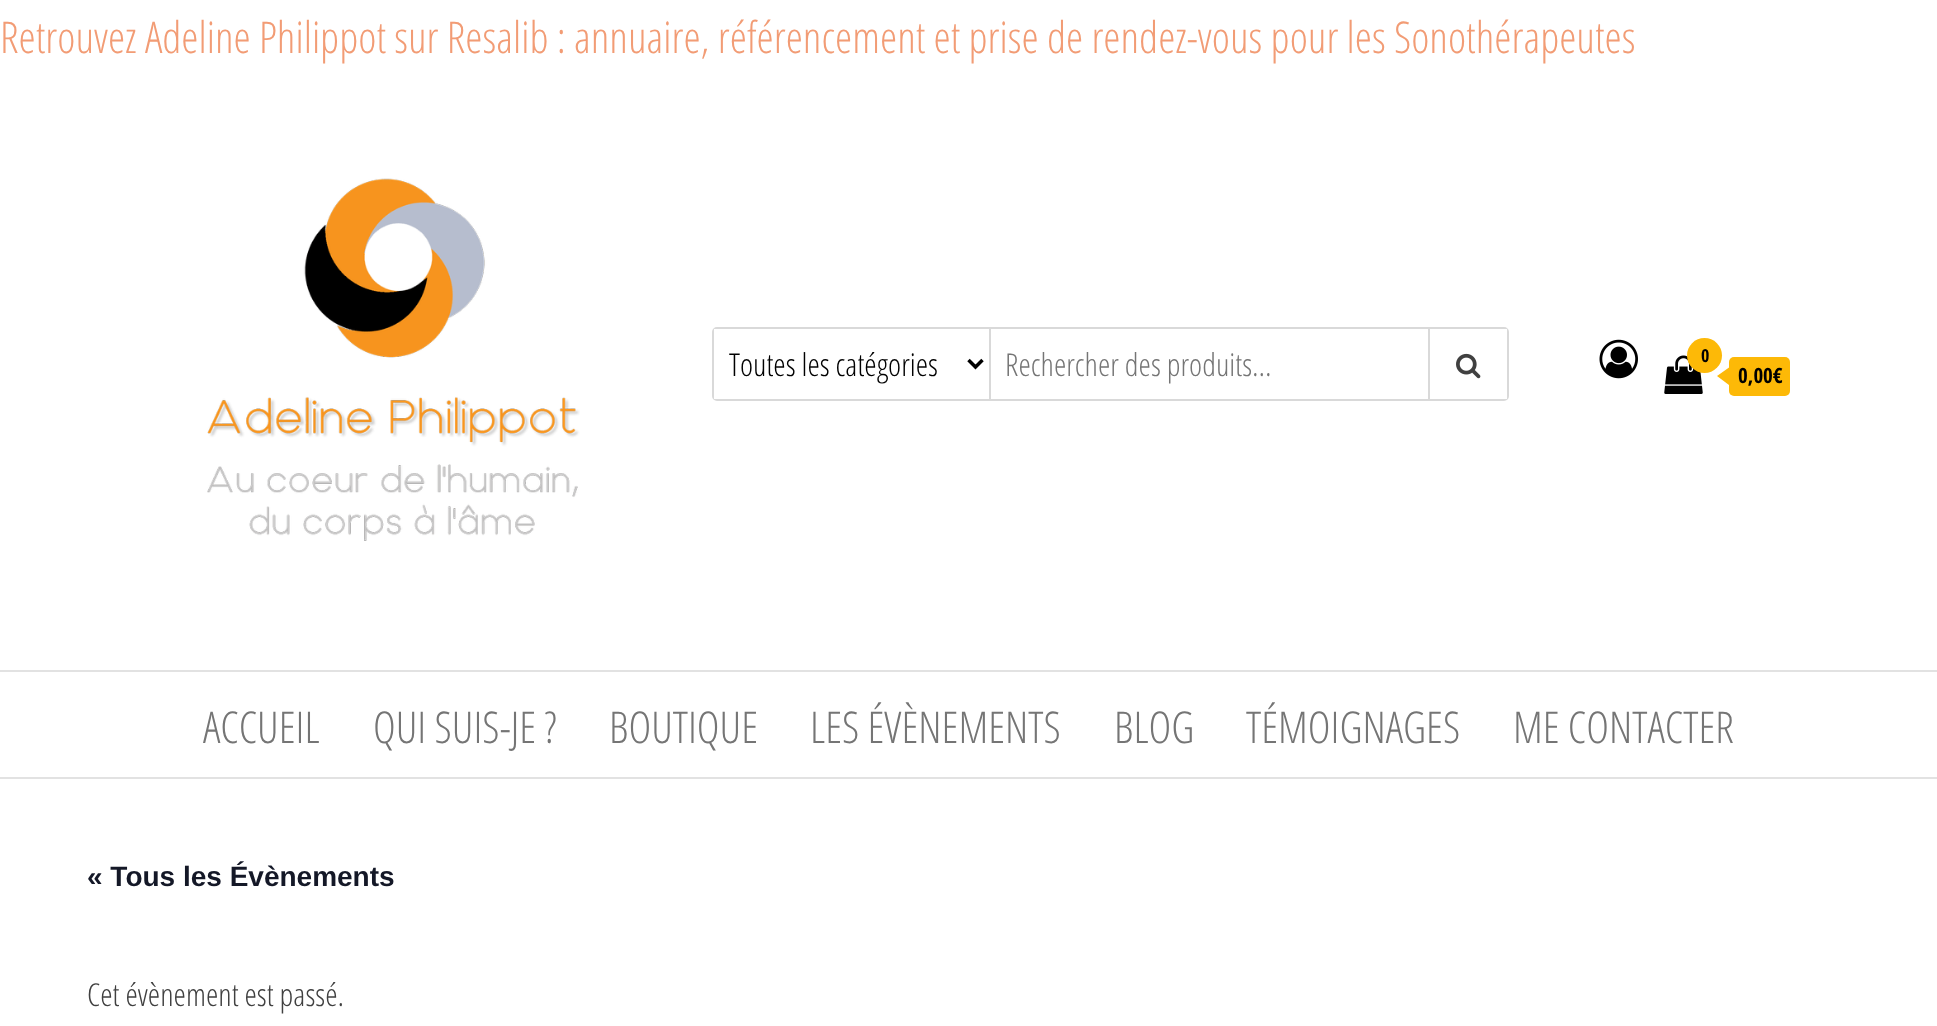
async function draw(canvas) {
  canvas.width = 1937
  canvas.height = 1026
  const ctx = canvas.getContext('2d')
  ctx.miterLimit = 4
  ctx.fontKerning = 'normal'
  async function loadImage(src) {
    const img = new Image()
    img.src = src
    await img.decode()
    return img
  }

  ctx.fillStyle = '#fff'
  ctx.fillRect(0, 0, 1937, 1026)
  ctx.font = '300 43.75px Open Sans Condensed'
  ctx.fillStyle = '#f29c75'
  ctx.fillText('Retrouvez Adeline Philippot sur Resalib : annuaire, référencement et prise de rendez-vous pour les Sonothérapeutes', 0, 53)
  ctx.drawImage(await loadImage('image0.png'), 207, 178, 373, 363)
  ctx.beginPath()
  ctx.roundRect(713, 328, 795, 72, 4)
  ctx.strokeStyle = '#d9d9d9'
  ctx.lineWidth = 2
  ctx.stroke()
  ctx.fillStyle = '#fff'
  ctx.fillRect(714, 329, 3, 70)
  ctx.fillStyle = '#d9d9d9'
  ctx.fillRect(989, 329, 2, 70)
  ctx.beginPath()
  ctx.moveTo(968.5, 360)
  ctx.lineTo(975.5, 367)
  ctx.lineTo(982.5, 360)
  ctx.strokeStyle = '#000'
  ctx.lineWidth = 3.5
  ctx.stroke()
  ctx.font = '300 31.5px Open Sans Condensed'
  ctx.fillStyle = '#000'
  ctx.fillText('Toutes les catégories', 729, 376)
  ctx.fillStyle = '#fff'
  ctx.fillRect(1504, 329, 3, 70)
  ctx.fillStyle = '#757575'
  ctx.fillText('Rechercher des produits...', 1005, 376)
  ctx.fillStyle = '#d9d9d9'
  ctx.fillRect(1428, 329, 2, 70)
  ctx.drawImage(await loadImage('image1.png'), 1456, 353, 25, 26)
  ctx.drawImage(await loadImage('image2.png'), 1599, 339, 39, 40)
  ctx.drawImage(await loadImage('image3.png'), 1664, 355, 39, 39)
  ctx.fillStyle = '#fdb907'
  ctx.beginPath()
  ctx.arc(1704.5, 355.5, 17.5, 0, 2 * Math.PI)
  ctx.fill()
  ctx.font = 'bold 18px Open Sans Condensed'
  ctx.fillStyle = '#000'
  ctx.fillText('0', 1701, 362)
  ctx.fillStyle = '#fdb907'
  ctx.beginPath()
  ctx.roundRect(1729, 357, 61, 39, 5)
  ctx.fill()
  ctx.beginPath()
  ctx.moveTo(1729, 367.5)
  ctx.lineTo(1729, 385)
  ctx.lineTo(1717, 376)
  ctx.closePath()
  ctx.fill()
  ctx.font = 'bold 21px Open Sans Condensed'
  ctx.fillStyle = '#000'
  ctx.fillText('0,00€', 1738, 383)
  ctx.fillStyle = '#e2e2e2'
  ctx.fillRect(0, 670, 1937, 2)
  ctx.fillRect(0, 777, 1937, 2)
  ctx.font = '300 43.75px Open Sans Condensed'
  ctx.fillStyle = '#757575'
  ctx.fillText('ACCUEIL', 203, 743)
  ctx.fillText('QUI SUIS-JE ?', 373, 743)
  ctx.fillText('BOUTIQUE', 609, 743)
  ctx.fillText('LES ÉVÈNEMENTS', 810, 743)
  ctx.fillText('BLOG', 1114, 743)
  ctx.fillText('TÉMOIGNAGES', 1246, 743)
  ctx.fillText('ME CONTACTER', 1513, 743)
  ctx.font = 'bold 28px Liberation Sans'
  ctx.fillStyle = '#141827'
  ctx.fillText('« Tous les Évènements', 87, 886)
  ctx.font = '300 31.5px Open Sans Condensed'
  ctx.fillStyle = '#404040'
  ctx.fillText('Cet évènement est passé.', 87, 1006)
}

draw(document.querySelector('canvas'))
